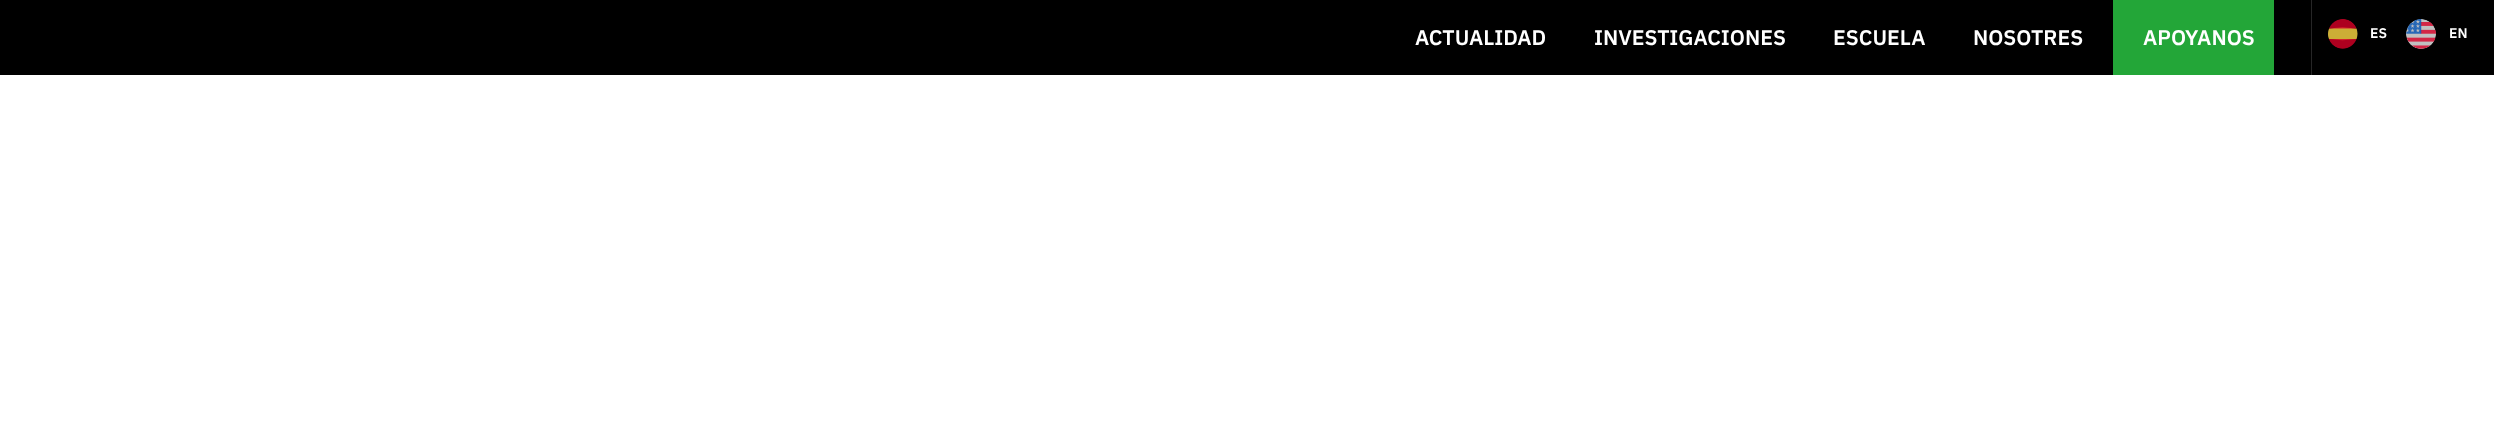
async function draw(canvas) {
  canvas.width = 2494
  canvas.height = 428
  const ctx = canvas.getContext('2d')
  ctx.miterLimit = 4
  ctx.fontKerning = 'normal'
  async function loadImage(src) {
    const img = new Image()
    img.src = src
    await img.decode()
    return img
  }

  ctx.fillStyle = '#fff'
  ctx.fillRect(0, 0, 2494, 428)
  ctx.fillStyle = '#000'
  ctx.fillRect(0, 0, 2494, 75)
  ctx.font = '600 21.25px IBM Plex Sans'
  ctx.fillStyle = '#fff'
  ctx.fillText('ACTUALIDAD', 1415, 45)
  ctx.fillText('INVESTIGACIONES', 1594, 45)
  ctx.fillText('ESCUELA', 1833, 45)
  ctx.fillText('NOSOTRES', 1973, 45)
  ctx.fillStyle = '#23a638'
  ctx.fillRect(2113, 0, 161, 75)
  ctx.fillStyle = '#fff'
  ctx.fillText('APOYANOS', 2143, 45)
  ctx.fillStyle = '#262626'
  ctx.fillRect(2311, 0, 1, 75)
  ctx.drawImage(await loadImage('image0.png'), 2328, 19, 30, 30)
  ctx.font = '600 14px IBM Plex Sans'
  ctx.fillStyle = '#fff'
  ctx.fillText('ES', 2370, 38)
  ctx.drawImage(await loadImage('image1.png'), 2406, 19, 30, 30)
  ctx.fillText('EN', 2449, 38)
}

draw(document.querySelector('canvas'))
